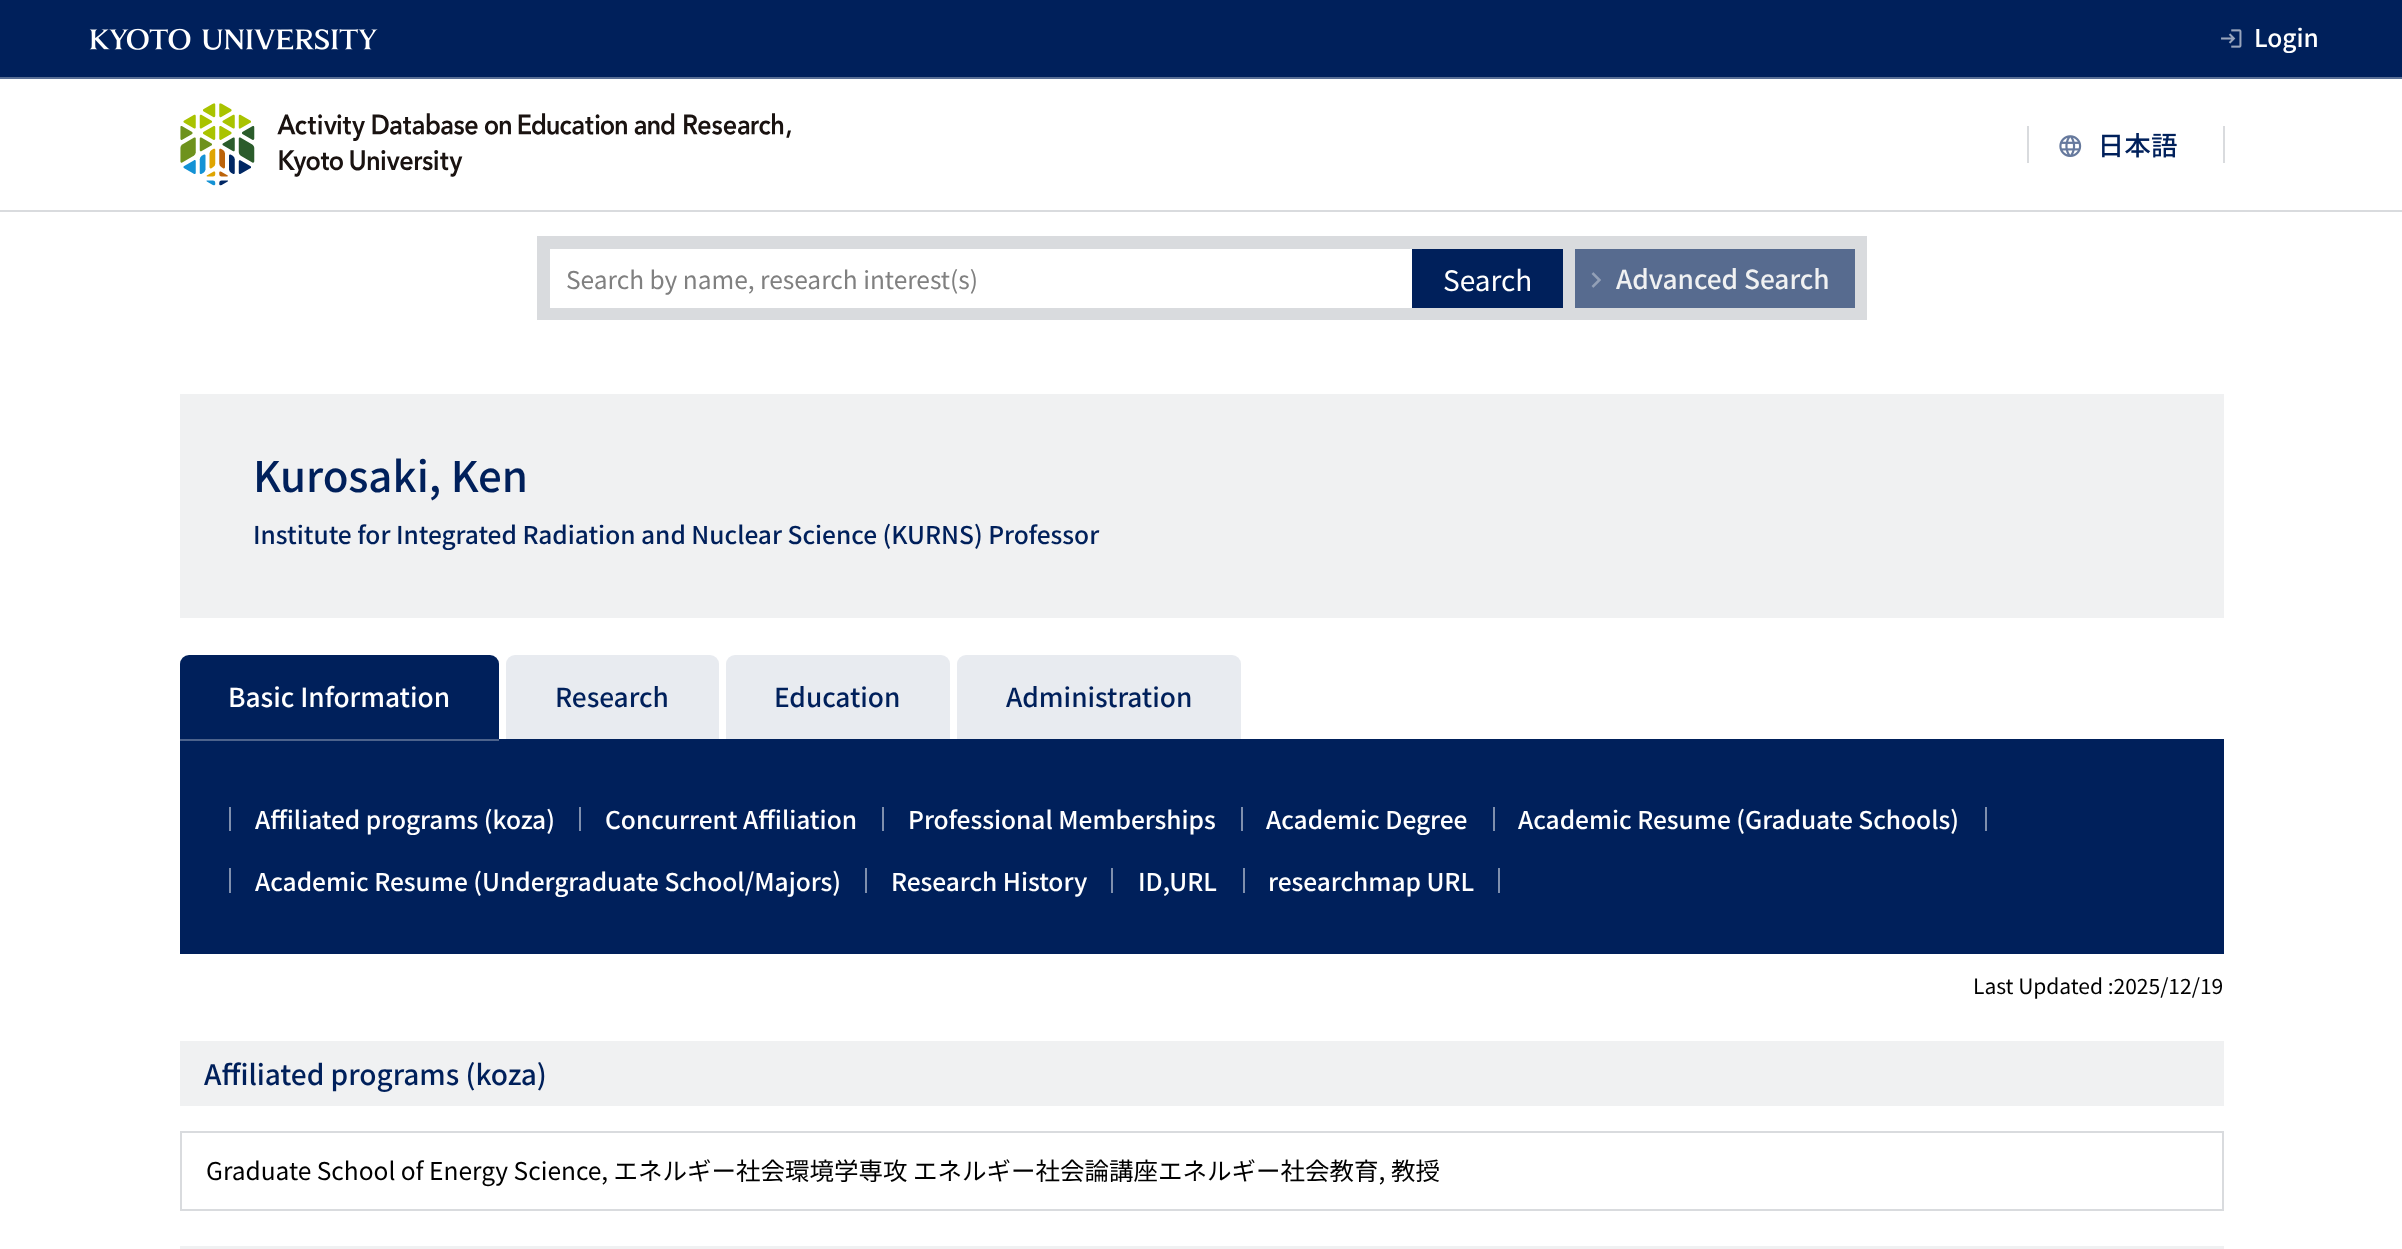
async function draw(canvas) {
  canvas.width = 2402
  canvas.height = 1249
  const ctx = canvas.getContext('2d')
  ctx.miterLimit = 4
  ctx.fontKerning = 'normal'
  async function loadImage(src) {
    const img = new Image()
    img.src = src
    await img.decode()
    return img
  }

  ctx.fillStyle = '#fff'
  ctx.fillRect(0, 0, 2402, 1249)
  ctx.fillStyle = '#d9dbde'
  ctx.fillRect(0, 210, 2402, 2)
  ctx.fillStyle = '#00205b'
  ctx.fillRect(0, 0, 2402, 77)
  ctx.fillStyle = '#596e94'
  ctx.fillRect(0, 77, 2402, 2)
  ctx.drawImage(await loadImage('image0.png'), 89, 28, 289, 22)
  ctx.drawImage(await loadImage('image1.png'), 2221, 29, 21, 19)
  ctx.font = '500 24.5px Noto Sans JP'
  ctx.fillStyle = '#fff'
  ctx.fillText('Login', 2254, 47)
  ctx.drawImage(await loadImage('image2.png'), 180, 103, 611, 83)
  ctx.fillStyle = '#d9dbde'
  ctx.fillRect(2223, 126, 2, 37)
  ctx.fillRect(2027, 126, 2, 37)
  ctx.drawImage(await loadImage('image3.png'), 2059, 135, 23, 22)
  ctx.drawImage(await loadImage('image4.png'), 2102, 133, 75, 25)
  ctx.fillRect(537, 236, 1330, 84)
  ctx.fillStyle = '#fff'
  ctx.fillRect(550, 249, 862, 59)
  ctx.font = '24.5px Noto Sans JP'
  ctx.fillStyle = '#808080'
  ctx.fillText('Search by name, research interest(s)', 566, 289)
  ctx.fillStyle = '#00205b'
  ctx.fillRect(1412, 249, 151, 59)
  ctx.font = '28px Noto Sans JP'
  ctx.fillStyle = '#fff'
  ctx.fillText('Search', 1443, 291)
  ctx.fillStyle = '#576b8f'
  ctx.fillRect(1575, 249, 280, 59)
  ctx.drawImage(await loadImage('image5.png'), 1591, 272, 10, 16)
  ctx.font = '500 26.25px Noto Sans JP'
  ctx.fillStyle = '#f0f1f2'
  ctx.fillText('Advanced Search', 1616, 289)
  ctx.fillRect(180, 394, 2044, 224)
  ctx.font = '500 42px Noto Sans JP'
  ctx.fillStyle = '#00205b'
  ctx.fillText('Kurosaki, Ken', 253, 492)
  ctx.font = '500 24.5px Noto Sans JP'
  ctx.fillText('Institute for Integrated Radiation and Nuclear Science (KURNS) Professor', 253, 544)
  ctx.fillRect(180, 739, 2044, 215)
  ctx.beginPath()
  ctx.roundRect(180, 655, 319, 85, [9, 9, 0, 0])
  ctx.fill()
  ctx.fillStyle = '#4d638c'
  ctx.fillRect(180, 739, 319, 2)
  ctx.font = '500 26.25px Noto Sans JP'
  ctx.fillStyle = '#fff'
  ctx.fillText('Basic Information', 228, 707)
  ctx.fillStyle = '#e8ebf0'
  ctx.beginPath()
  ctx.roundRect(506, 655, 213, 84, [9, 9, 0, 0])
  ctx.fill()
  ctx.fillStyle = '#00205b'
  ctx.fillText('Research', 555, 707)
  ctx.fillStyle = '#e8ebf0'
  ctx.beginPath()
  ctx.roundRect(726, 655, 224, 84, [9, 9, 0, 0])
  ctx.fill()
  ctx.fillStyle = '#00205b'
  ctx.fillText('Education', 774, 707)
  ctx.fillStyle = '#e8ebf0'
  ctx.beginPath()
  ctx.roundRect(957, 655, 284, 84, [9, 9, 0, 0])
  ctx.fill()
  ctx.fillStyle = '#00205b'
  ctx.fillText('Administration', 1006, 707)
  ctx.fillStyle = '#7f8fad'
  ctx.fillRect(579, 807, 2, 24)
  ctx.fillRect(229, 807, 2, 24)
  ctx.font = '500 24.5px Noto Sans JP'
  ctx.fillStyle = '#fff'
  ctx.fillText('Affiliated programs (koza)', 255, 829)
  ctx.fillStyle = '#7f8fad'
  ctx.fillRect(882, 807, 2, 24)
  ctx.fillStyle = '#fff'
  ctx.fillText('Concurrent Affiliation', 605, 829)
  ctx.fillStyle = '#7f8fad'
  ctx.fillRect(1241, 807, 2, 24)
  ctx.fillStyle = '#fff'
  ctx.fillText('Professional Memberships', 908, 829)
  ctx.fillStyle = '#7f8fad'
  ctx.fillRect(1493, 807, 2, 24)
  ctx.fillStyle = '#fff'
  ctx.fillText('Academic Degree', 1266, 829)
  ctx.fillStyle = '#7f8fad'
  ctx.fillRect(1985, 807, 2, 24)
  ctx.fillStyle = '#fff'
  ctx.fillText('Academic Resume (Graduate Schools)', 1518, 829)
  ctx.fillStyle = '#7f8fad'
  ctx.fillRect(865, 868, 2, 25)
  ctx.fillRect(229, 868, 2, 25)
  ctx.fillStyle = '#fff'
  ctx.fillText('Academic Resume (Undergraduate School/Majors)', 255, 891)
  ctx.fillStyle = '#7f8fad'
  ctx.fillRect(1111, 868, 2, 25)
  ctx.fillStyle = '#fff'
  ctx.fillText('Research History', 891, 891)
  ctx.fillStyle = '#7f8fad'
  ctx.fillRect(1243, 868, 2, 25)
  ctx.fillStyle = '#fff'
  ctx.fillText('ID,URL', 1138, 891)
  ctx.fillStyle = '#7f8fad'
  ctx.fillRect(1498, 868, 2, 25)
  ctx.fillStyle = '#fff'
  ctx.fillText('researchmap URL', 1268, 891)
  ctx.font = '21px Noto Sans JP'
  ctx.fillStyle = '#000'
  ctx.fillText('Last Updated :2025/12/19', 1973, 994)
  ctx.fillStyle = '#f0f1f2'
  ctx.fillRect(180, 1041, 2044, 65)
  ctx.font = '500 28px Noto Sans JP'
  ctx.fillStyle = '#00205b'
  ctx.fillText('Affiliated programs (koza)', 204, 1085)
  ctx.strokeStyle = '#d9dbde'
  ctx.lineWidth = 2
  ctx.strokeRect(181, 1132, 2042, 78)
  ctx.font = '24.5px Noto Sans JP'
  ctx.fillStyle = '#000'
  ctx.fillText('Graduate School of Energy Science, エネルギー社会環境学専攻 エネルギー社会論講座エネルギー社会教育, 教授', 206, 1180)
  ctx.fillStyle = '#f0f1f2'
  ctx.fillRect(180, 1246, 2044, 3)
}

draw(document.querySelector('canvas'))
